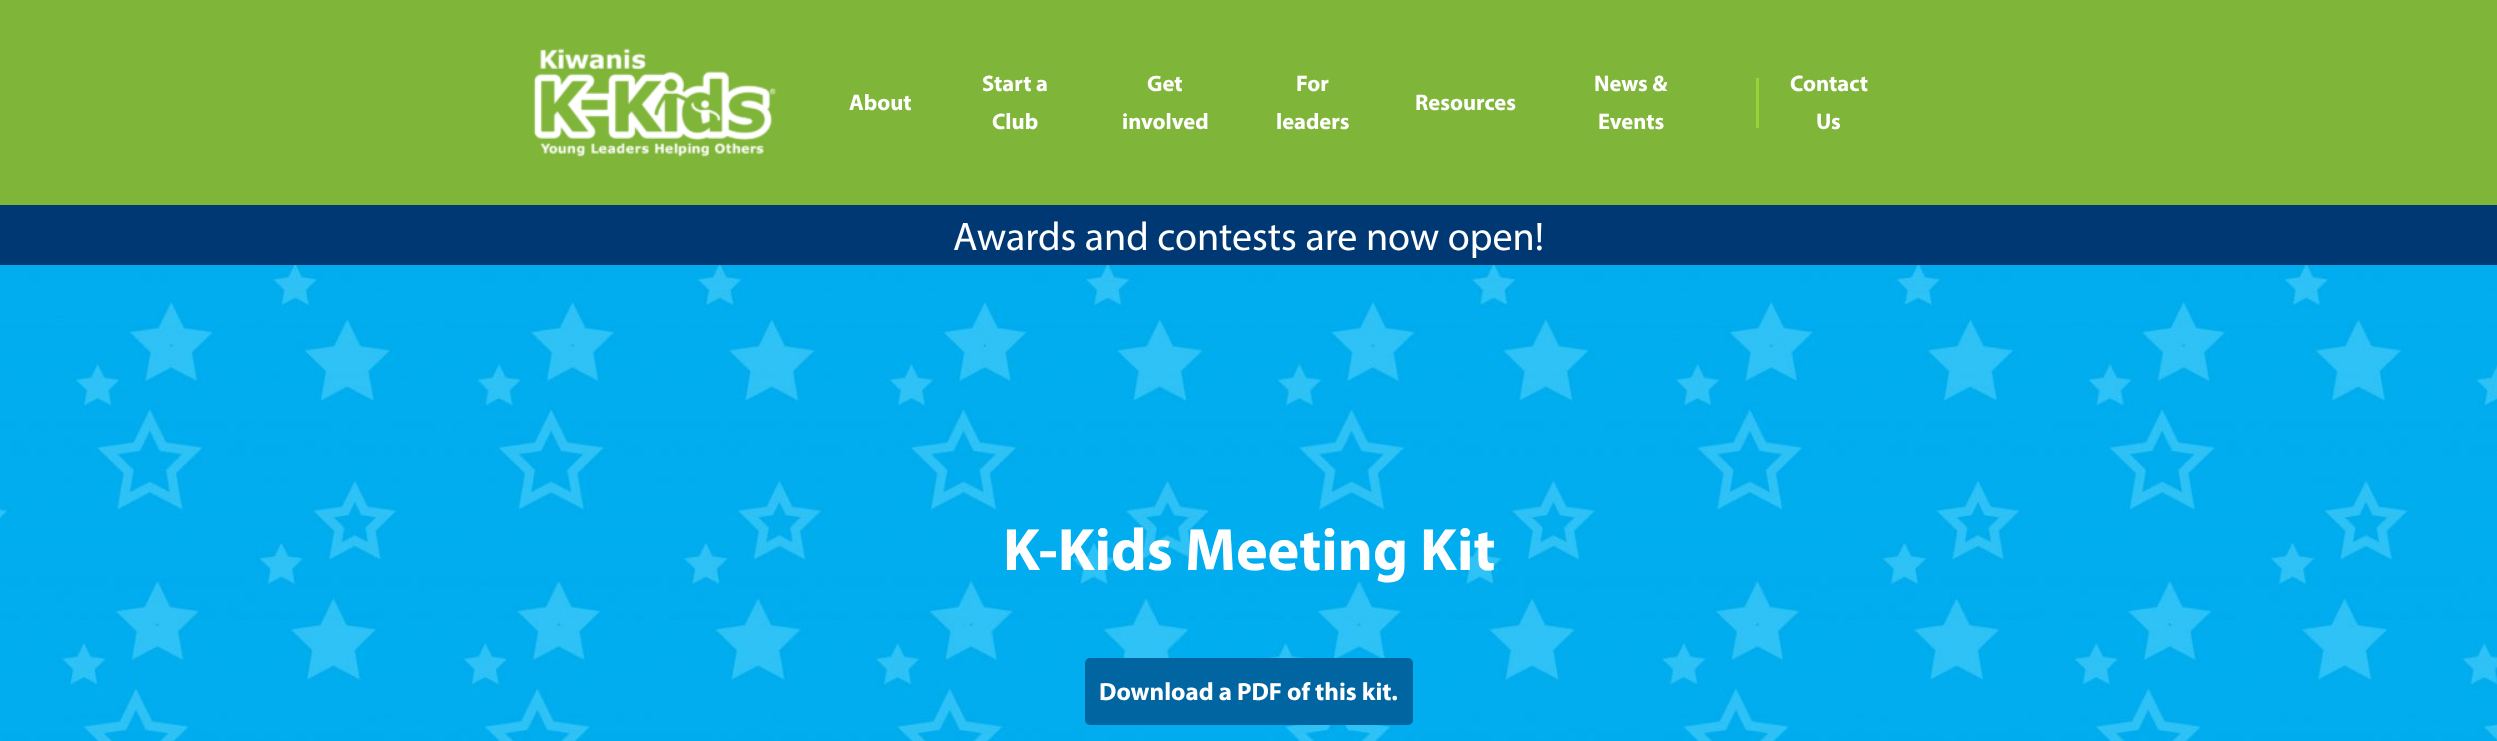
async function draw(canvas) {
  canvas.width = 2497
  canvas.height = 741
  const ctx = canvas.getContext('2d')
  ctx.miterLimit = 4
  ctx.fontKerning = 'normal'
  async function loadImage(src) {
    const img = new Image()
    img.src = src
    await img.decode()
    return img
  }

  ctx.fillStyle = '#003874'
  ctx.fillRect(0, 0, 2497, 741)
  ctx.fillStyle = '#7fb538'
  ctx.fillRect(0, 0, 2497, 205)
  ctx.drawImage(await loadImage('image0.png'), 533, 48, 244, 109)
  ctx.font = 'bold 22.5px Myriad'
  ctx.fillStyle = '#fff'
  ctx.fillText('About', 849, 110)
  ctx.fillText('Start a', 982, 91)
  ctx.fillText('Club', 992, 129)
  ctx.fillText('Get', 1147, 91)
  ctx.fillText('involved', 1122, 129)
  ctx.fillText('For', 1296, 91)
  ctx.fillText('leaders', 1276, 129)
  ctx.fillText('Resources', 1415, 110)
  ctx.fillText('News &', 1594, 91)
  ctx.fillText('Events', 1598, 129)
  ctx.fillStyle = '#9bd239'
  ctx.fillRect(1756, 78, 3, 50)
  ctx.fillStyle = '#fff'
  ctx.fillText('Contact', 1790, 91)
  ctx.fillText('Us', 1816, 129)
  ctx.font = '40px Myriad'
  ctx.fillText('Awards and contests are now open!', 953, 250)
  ctx.drawImage(await loadImage('image1.png'), 0, 265, 2497, 476)
  ctx.font = 'bold 60px Myriad'
  ctx.fillText('K-Kids Meeting Kit', 1003, 570)
  ctx.fillStyle = '#0065a1'
  ctx.beginPath()
  ctx.roundRect(1085, 658, 328, 67, 5)
  ctx.fill()
  ctx.font = 'bold 25px Myriad'
  ctx.fillStyle = '#fff'
  ctx.fillText('Download a PDF of this kit.', 1099, 700)
}

draw(document.querySelector('canvas'))
